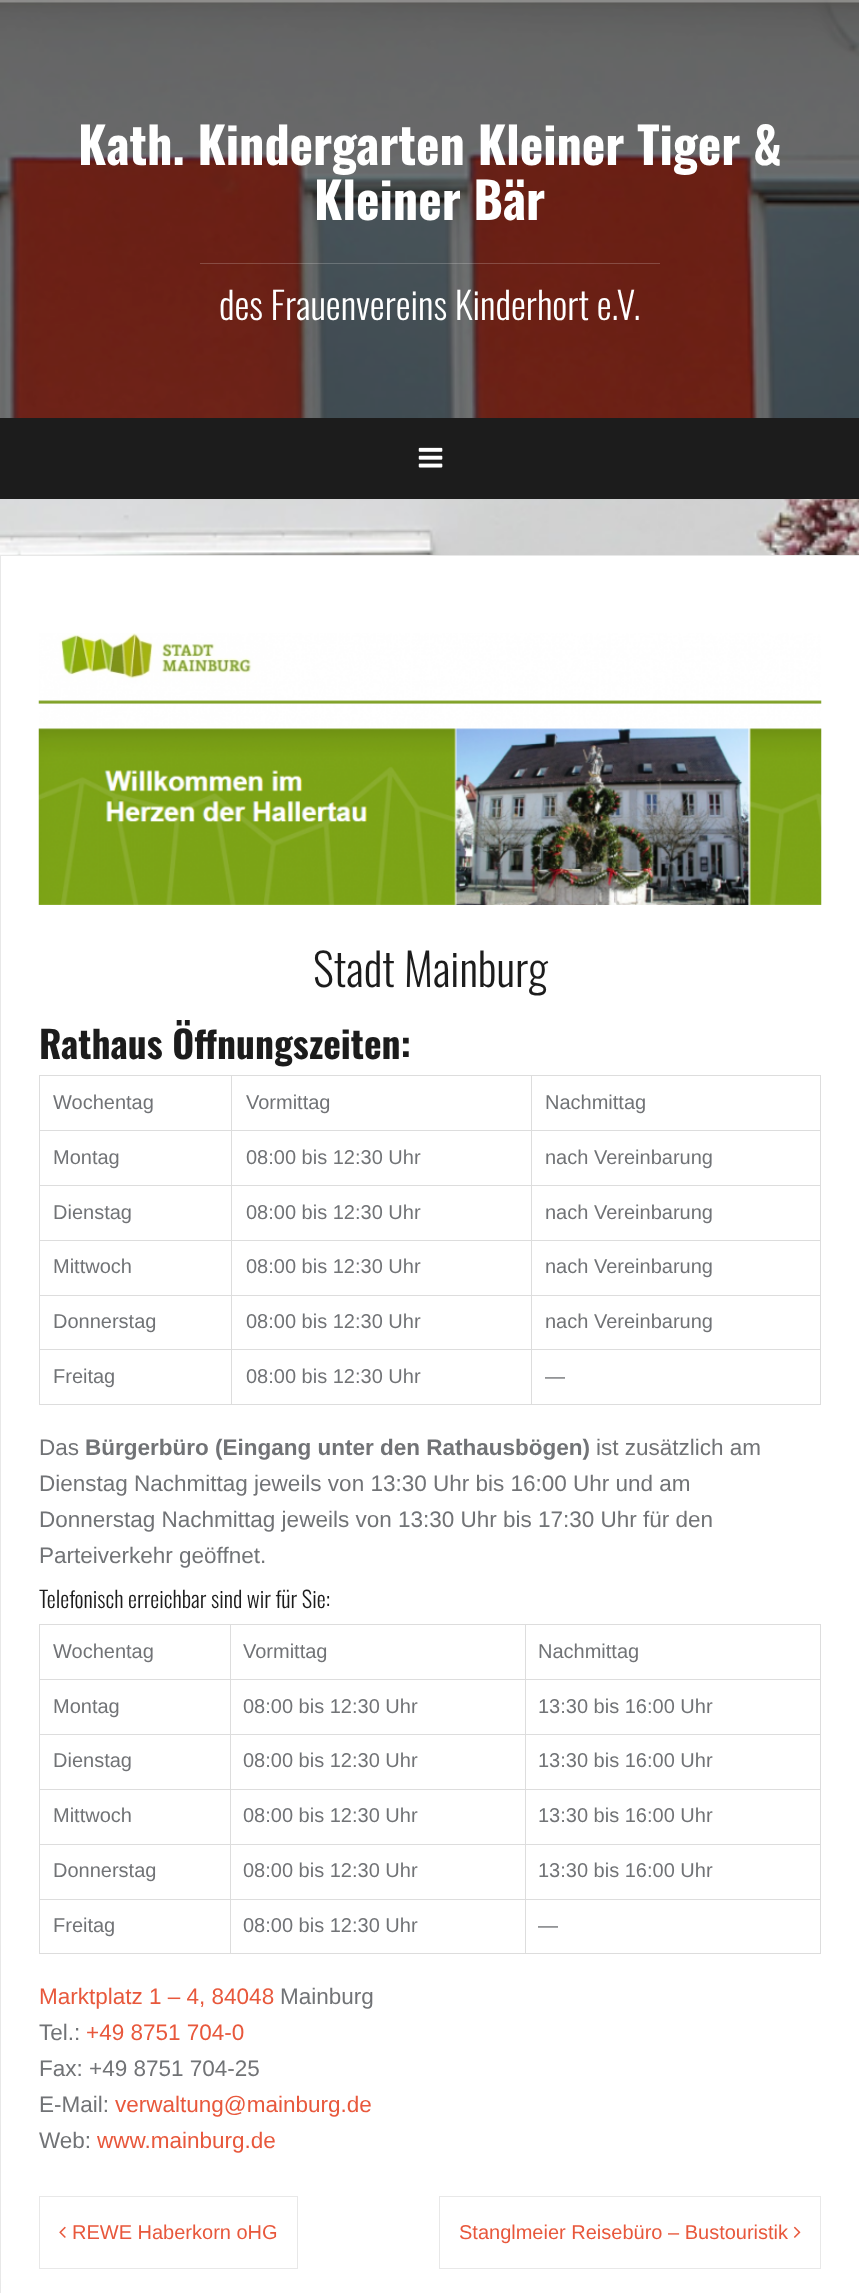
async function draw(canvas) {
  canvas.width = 859
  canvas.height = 2293
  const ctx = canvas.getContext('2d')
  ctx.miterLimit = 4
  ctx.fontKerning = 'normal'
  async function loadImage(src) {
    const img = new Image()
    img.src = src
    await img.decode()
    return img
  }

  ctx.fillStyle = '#fff'
  ctx.fillRect(0, 0, 859, 2293)
  ctx.drawImage(await loadImage('image0.png'), 0, 499, 859, 56)
  ctx.drawImage(await loadImage('image1.png'), 0, 0, 859, 418)
  ctx.fillStyle = '#ffffff26'
  ctx.fillRect(0, 0, 859, 3)
  ctx.fillStyle = '#ffffff33'
  ctx.fillRect(0, 0, 859, 1)
  ctx.fillRect(0, 1, 859, 1)
  ctx.font = 'bold 50px Oswald'
  ctx.fillStyle = '#fff'
  ctx.fillText('Kath. Kindergarten Kleiner Tiger &', 78, 165)
  ctx.fillText('Kleiner Bär', 314, 220)
  ctx.fillStyle = '#ffffff33'
  ctx.fillRect(200, 263, 460, 1)
  ctx.font = '300 37.5px Oswald'
  ctx.fillStyle = '#fff'
  ctx.fillText('des Frauenvereins Kinderhort e.V.', 219, 320)
  ctx.fillStyle = '#1c1c1c'
  ctx.fillRect(0, 418, 859, 81)
  ctx.drawImage(await loadImage('image2.png'), 418, 447, 25, 21)
  ctx.strokeStyle = '#e8e8e8'
  ctx.strokeRect(0.5, 555.5, 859, 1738)
  ctx.drawImage(await loadImage('image3.png'), 38, 633, 784, 272)
  ctx.font = '300 45px Oswald'
  ctx.fillText('Stadt Mainburg', 313, 987)
  ctx.font = 'bold 37.5px Oswald'
  ctx.fillText('Rathaus Öffnungszeiten:', 39, 1059)
  ctx.fillStyle = '#ddd'
  ctx.fillRect(531, 1075, 290, 1)
  ctx.fillRect(531, 1130, 290, 1)
  ctx.fillRect(531, 1185, 290, 1)
  ctx.fillRect(531, 1240, 290, 1)
  ctx.fillRect(531, 1295, 290, 1)
  ctx.fillRect(531, 1349, 290, 1)
  ctx.fillRect(820, 1349, 1, 56)
  ctx.fillRect(531, 1404, 290, 1)
  ctx.fillRect(531, 1349, 1, 56)
  ctx.fillRect(231, 1349, 302, 1)
  ctx.fillRect(531, 1295, 1, 55)
  ctx.fillRect(231, 1295, 302, 1)
  ctx.fillRect(531, 1240, 1, 56)
  ctx.fillRect(231, 1240, 302, 1)
  ctx.fillRect(531, 1185, 1, 56)
  ctx.fillRect(231, 1185, 302, 1)
  ctx.fillRect(531, 1130, 1, 56)
  ctx.fillRect(231, 1130, 302, 1)
  ctx.fillRect(531, 1075, 1, 56)
  ctx.fillRect(231, 1075, 302, 1)
  ctx.fillRect(231, 1404, 302, 1)
  ctx.fillRect(231, 1349, 1, 56)
  ctx.fillRect(39, 1349, 194, 1)
  ctx.fillRect(231, 1295, 1, 55)
  ctx.fillRect(39, 1295, 194, 1)
  ctx.fillRect(231, 1240, 1, 56)
  ctx.fillRect(39, 1240, 194, 1)
  ctx.fillRect(231, 1185, 1, 56)
  ctx.fillRect(39, 1185, 194, 1)
  ctx.fillRect(231, 1130, 1, 56)
  ctx.fillRect(39, 1130, 194, 1)
  ctx.fillRect(231, 1075, 1, 56)
  ctx.fillRect(39, 1075, 194, 1)
  ctx.fillRect(39, 1404, 194, 1)
  ctx.fillRect(39, 1349, 1, 56)
  ctx.fillRect(39, 1295, 1, 55)
  ctx.fillRect(39, 1240, 1, 56)
  ctx.fillRect(39, 1185, 1, 56)
  ctx.fillRect(39, 1130, 1, 56)
  ctx.fillRect(39, 1075, 1, 56)
  ctx.font = '20px Liberation Sans'
  ctx.fillStyle = '#717376'
  ctx.fillText('Wochentag', 53, 1109)
  ctx.fillText('Vormittag', 246, 1109)
  ctx.fillStyle = '#ddd'
  ctx.fillRect(820, 1295, 1, 55)
  ctx.fillRect(820, 1240, 1, 56)
  ctx.fillRect(820, 1185, 1, 56)
  ctx.fillRect(820, 1130, 1, 56)
  ctx.fillRect(820, 1075, 1, 56)
  ctx.fillStyle = '#717376'
  ctx.fillText('Nachmittag', 545, 1109)
  ctx.fillText('Montag', 53, 1164)
  ctx.fillText('08:00 bis 12:30 Uhr', 246, 1164)
  ctx.fillText('nach Vereinbarung', 545, 1164)
  ctx.fillText('Dienstag', 53, 1219)
  ctx.fillText('08:00 bis 12:30 Uhr', 246, 1219)
  ctx.fillText('nach Vereinbarung', 545, 1219)
  ctx.fillText('Mittwoch', 53, 1273)
  ctx.fillText('08:00 bis 12:30 Uhr', 246, 1273)
  ctx.fillText('nach Vereinbarung', 545, 1273)
  ctx.fillText('Donnerstag', 53, 1328)
  ctx.fillText('08:00 bis 12:30 Uhr', 246, 1328)
  ctx.fillText('nach Vereinbarung', 545, 1328)
  ctx.fillText('Freitag', 53, 1383)
  ctx.fillText('08:00 bis 12:30 Uhr', 246, 1383)
  ctx.fillText('—', 545, 1383)
  ctx.font = '22.5px Liberation Sans'
  ctx.fillText('Das', 39, 1455)
  ctx.font = 'bold 22.5px Liberation Sans'
  ctx.fillText('Bürgerbüro (Eingang unter den Rathausbögen)', 85, 1455)
  ctx.font = '22.5px Liberation Sans'
  ctx.fillText('ist zusätzlich am', 596, 1455)
  ctx.fillText('Dienstag Nachmittag jeweils von 13:30 Uhr bis 16:00 Uhr und am', 39, 1491)
  ctx.fillText('Donnerstag Nachmittag jeweils von 13:30 Uhr bis 17:30 Uhr für den', 39, 1527)
  ctx.fillText('Parteiverkehr geöffnet.', 39, 1563)
  ctx.font = '300 22.5px Oswald'
  ctx.fillStyle = '#1c1c1c'
  ctx.fillText('Telefonisch erreichbar sind wir für Sie:', 39, 1608)
  ctx.fillStyle = '#ddd'
  ctx.fillRect(525, 1624, 296, 1)
  ctx.fillRect(525, 1679, 296, 1)
  ctx.fillRect(525, 1734, 296, 1)
  ctx.fillRect(525, 1789, 296, 1)
  ctx.fillRect(525, 1844, 296, 1)
  ctx.fillRect(525, 1899, 296, 1)
  ctx.fillRect(820, 1899, 1, 55)
  ctx.fillRect(525, 1953, 296, 1)
  ctx.fillRect(525, 1899, 1, 55)
  ctx.fillRect(230, 1899, 296, 1)
  ctx.fillRect(525, 1844, 1, 56)
  ctx.fillRect(230, 1844, 296, 1)
  ctx.fillRect(525, 1789, 1, 56)
  ctx.fillRect(230, 1789, 296, 1)
  ctx.fillRect(525, 1734, 1, 56)
  ctx.fillRect(230, 1734, 296, 1)
  ctx.fillRect(525, 1679, 1, 56)
  ctx.fillRect(230, 1679, 296, 1)
  ctx.fillRect(525, 1624, 1, 56)
  ctx.fillRect(230, 1624, 296, 1)
  ctx.fillRect(230, 1953, 296, 1)
  ctx.fillRect(230, 1899, 1, 55)
  ctx.fillRect(39, 1899, 192, 1)
  ctx.fillRect(230, 1844, 1, 56)
  ctx.fillRect(39, 1844, 192, 1)
  ctx.fillRect(230, 1789, 1, 56)
  ctx.fillRect(39, 1789, 192, 1)
  ctx.fillRect(230, 1734, 1, 56)
  ctx.fillRect(39, 1734, 192, 1)
  ctx.fillRect(230, 1679, 1, 56)
  ctx.fillRect(39, 1679, 192, 1)
  ctx.fillRect(230, 1624, 1, 56)
  ctx.fillRect(39, 1624, 192, 1)
  ctx.fillRect(39, 1953, 192, 1)
  ctx.fillRect(39, 1899, 1, 55)
  ctx.fillRect(39, 1844, 1, 56)
  ctx.fillRect(39, 1789, 1, 56)
  ctx.fillRect(39, 1734, 1, 56)
  ctx.fillRect(39, 1679, 1, 56)
  ctx.fillRect(39, 1624, 1, 56)
  ctx.font = '20px Liberation Sans'
  ctx.fillStyle = '#717376'
  ctx.fillText('Wochentag', 53, 1658)
  ctx.fillText('Vormittag', 243, 1658)
  ctx.fillStyle = '#ddd'
  ctx.fillRect(820, 1844, 1, 56)
  ctx.fillRect(820, 1789, 1, 56)
  ctx.fillRect(820, 1734, 1, 56)
  ctx.fillRect(820, 1679, 1, 56)
  ctx.fillRect(820, 1624, 1, 56)
  ctx.fillStyle = '#717376'
  ctx.fillText('Nachmittag', 538, 1658)
  ctx.fillText('Montag', 53, 1713)
  ctx.fillText('08:00 bis 12:30 Uhr', 243, 1713)
  ctx.fillText('13:30 bis 16:00 Uhr', 538, 1713)
  ctx.fillText('Dienstag', 53, 1767)
  ctx.fillText('08:00 bis 12:30 Uhr', 243, 1767)
  ctx.fillText('13:30 bis 16:00 Uhr', 538, 1767)
  ctx.fillText('Mittwoch', 53, 1822)
  ctx.fillText('08:00 bis 12:30 Uhr', 243, 1822)
  ctx.fillText('13:30 bis 16:00 Uhr', 538, 1822)
  ctx.fillText('Donnerstag', 53, 1877)
  ctx.fillText('08:00 bis 12:30 Uhr', 243, 1877)
  ctx.fillText('13:30 bis 16:00 Uhr', 538, 1877)
  ctx.fillText('Freitag', 53, 1932)
  ctx.fillText('08:00 bis 12:30 Uhr', 243, 1932)
  ctx.fillText('—', 538, 1932)
  ctx.font = '22.5px Liberation Sans'
  ctx.fillStyle = '#e8583c'
  ctx.fillText('Marktplatz 1 – 4, 84048', 39, 2004)
  ctx.fillStyle = '#717376'
  ctx.fillText('Mainburg', 280, 2004)
  ctx.fillText('Tel.:', 39, 2040)
  ctx.fillStyle = '#e8583c'
  ctx.fillText('+49 8751 704-0', 86, 2040)
  ctx.fillStyle = '#717376'
  ctx.fillText('Fax: +49 8751 704-25', 39, 2076)
  ctx.fillText('E-Mail:', 39, 2112)
  ctx.fillStyle = '#e8583c'
  ctx.fillText('verwaltung@mainburg.de', 115, 2112)
  ctx.fillStyle = '#717376'
  ctx.fillText('Web:', 39, 2148)
  ctx.fillStyle = '#e8583c'
  ctx.fillText('www.mainburg.de', 97, 2148)
  ctx.strokeRect(39.5, 2196.5, 258, 72)
  ctx.drawImage(await loadImage('image4.png'), 59, 2226, 7, 12)
  ctx.font = '20px Liberation Sans'
  ctx.fillText('REWE Haberkorn oHG', 72, 2239)
  ctx.strokeRect(439.5, 2196.5, 381, 72)
  ctx.fillText('Stanglmeier Reisebüro – Bustouristik', 459, 2239)
  ctx.drawImage(await loadImage('image5.png'), 793, 2226, 8, 12)
}

draw(document.querySelector('canvas'))
